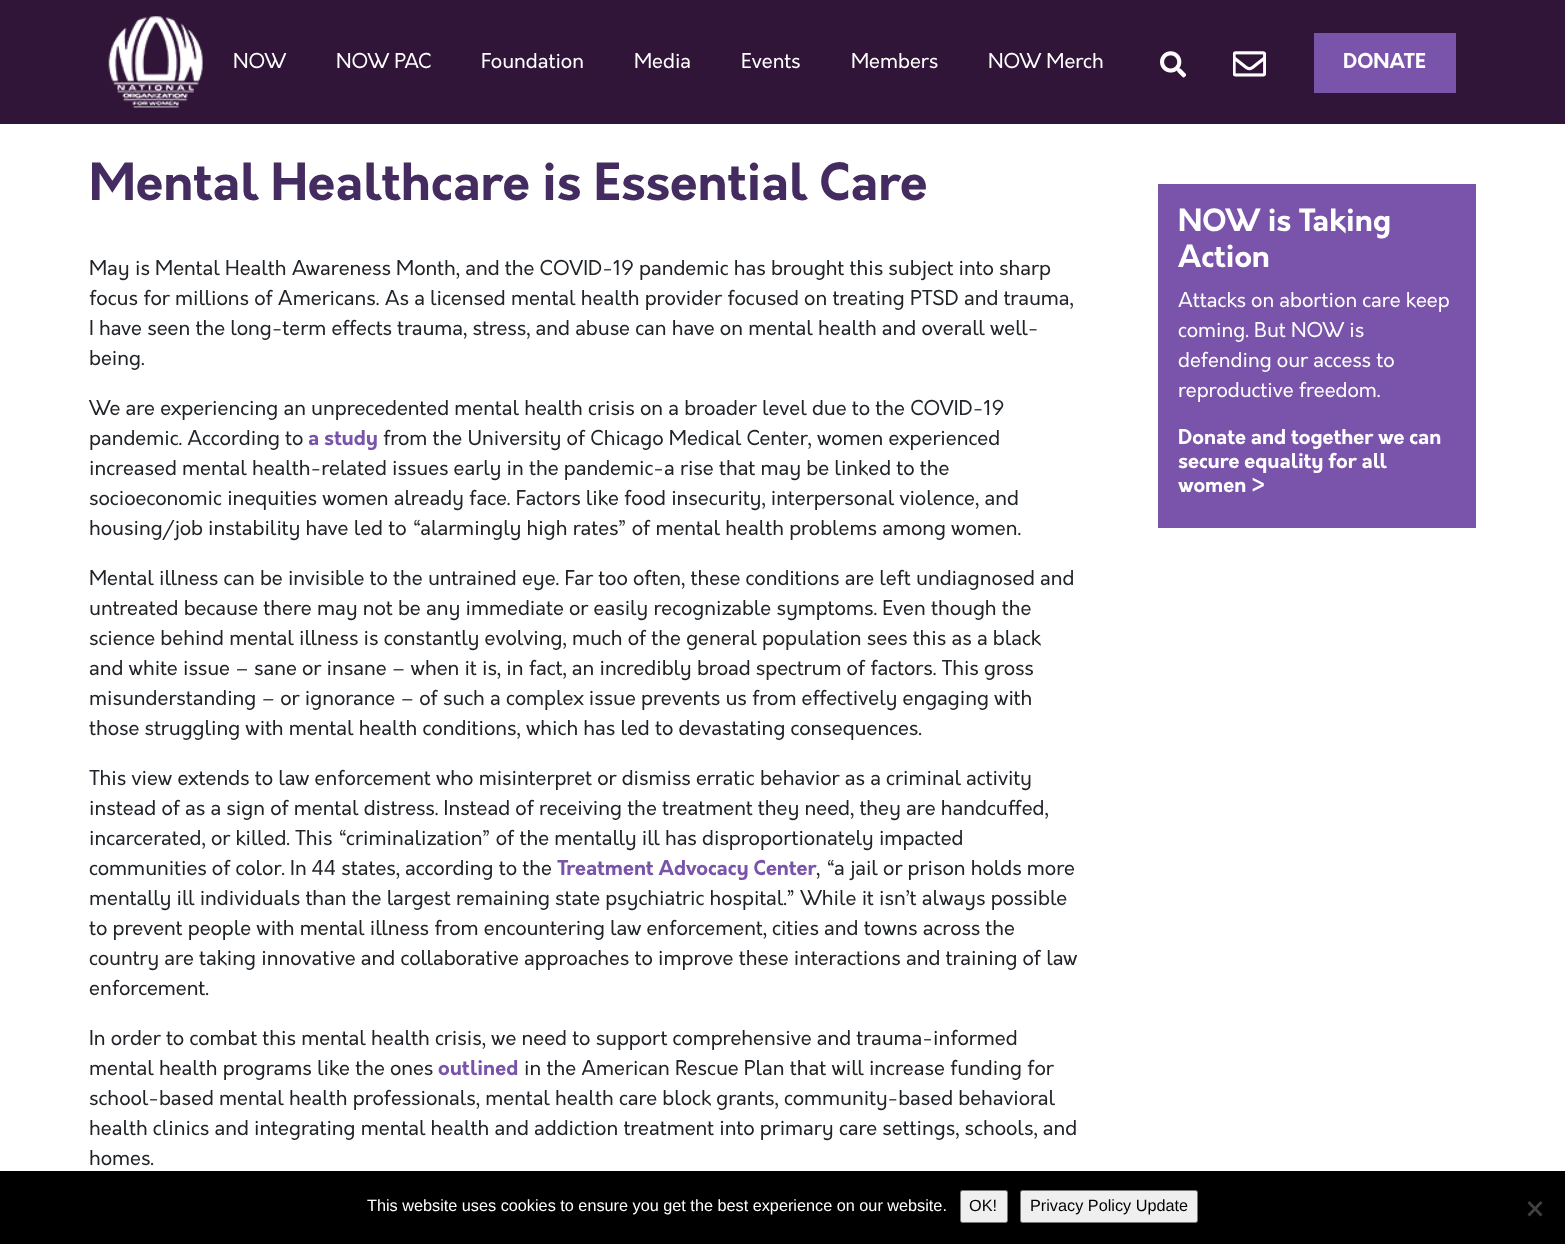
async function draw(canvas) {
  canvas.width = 1565
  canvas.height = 1244
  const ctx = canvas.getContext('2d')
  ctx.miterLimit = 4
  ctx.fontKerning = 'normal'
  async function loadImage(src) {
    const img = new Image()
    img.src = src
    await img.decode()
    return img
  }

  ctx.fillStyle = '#fff'
  ctx.fillRect(0, 0, 1565, 1244)
  ctx.fillStyle = '#311539'
  ctx.fillRect(0, 0, 1565, 124)
  ctx.drawImage(await loadImage('image0.png'), 108, 16, 95, 92)
  ctx.font = '20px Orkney'
  ctx.fillStyle = '#fff'
  ctx.fillText('NOW', 233, 68)
  ctx.fillText('NOW PAC', 336, 68)
  ctx.fillText('Foundation', 481, 68)
  ctx.fillText('Media', 634, 68)
  ctx.fillText('Events', 741, 68)
  ctx.fillText('Members', 851, 68)
  ctx.fillText('NOW Merch', 988, 68)
  ctx.drawImage(await loadImage('image1.png'), 1160, 51, 26, 27)
  ctx.drawImage(await loadImage('image2.png'), 1233, 51, 33, 26)
  ctx.fillStyle = '#7a54ab'
  ctx.fillRect(1314, 33, 142, 60)
  ctx.font = 'bold 20px Orkney'
  ctx.fillStyle = '#fff'
  ctx.fillText('DONATE', 1343, 68)
  ctx.font = 'bold 50px Orkney'
  ctx.fillStyle = '#452c60'
  ctx.fillText('Mental Healthcare is Essential Care', 89, 200)
  ctx.font = '20px Orkney'
  ctx.fillStyle = '#212529'
  ctx.fillText('May is Mental Health Awareness Month, and the COVID-19 pandemic has brought this subject into sharp', 89, 275)
  ctx.fillText('focus for millions of Americans. As a licensed mental health provider focused on treating PTSD and trauma,', 89, 305)
  ctx.fillText('I have seen the long-term effects trauma, stress, and abuse can have on mental health and overall well-', 89, 335)
  ctx.fillText('being.', 89, 365)
  ctx.fillText('We are experiencing an unprecedented mental health crisis on a broader level due to the COVID-19', 89, 415)
  ctx.fillText('pandemic. According to', 89, 445)
  ctx.font = 'bold 20px Orkney'
  ctx.fillStyle = '#7a54ab'
  ctx.fillText('a study', 308, 445)
  ctx.font = '20px Orkney'
  ctx.fillStyle = '#212529'
  ctx.fillText('from the University of Chicago Medical Center, women experienced', 383, 445)
  ctx.fillText('increased mental health-related issues early in the pandemic-a rise that may be linked to the', 89, 475)
  ctx.fillText('socioeconomic inequities women already face. Factors like food insecurity, interpersonal violence, and', 89, 505)
  ctx.fillText('housing/job instability have led to “alarmingly high rates” of mental health problems among women.', 89, 535)
  ctx.fillText('Mental illness can be invisible to the untrained eye. Far too often, these conditions are left undiagnosed and', 89, 585)
  ctx.fillText('untreated because there may not be any immediate or easily recognizable symptoms. Even though the', 89, 615)
  ctx.fillText('science behind mental illness is constantly evolving, much of the general population sees this as a black', 89, 645)
  ctx.fillText('and white issue – sane or insane – when it is, in fact, an incredibly broad spectrum of factors. This gross', 89, 675)
  ctx.fillText('misunderstanding – or ignorance – of such a complex issue prevents us from effectively engaging with', 89, 705)
  ctx.fillText('those struggling with mental health conditions, which has led to devastating consequences.', 89, 735)
  ctx.fillText('This view extends to law enforcement who misinterpret or dismiss erratic behavior as a criminal activity', 89, 785)
  ctx.fillText('instead of as a sign of mental distress. Instead of receiving the treatment they need, they are handcuffed,', 89, 815)
  ctx.fillText('incarcerated, or killed. This “criminalization” of the mentally ill has disproportionately impacted', 89, 845)
  ctx.fillText('communities of color. In 44 states, according to the', 89, 875)
  ctx.font = 'bold 20px Orkney'
  ctx.fillStyle = '#7a54ab'
  ctx.fillText('Treatment Advocacy Center', 557, 875)
  ctx.font = '20px Orkney'
  ctx.fillStyle = '#212529'
  ctx.fillText(', “a jail or prison holds more', 816, 875)
  ctx.fillText('mentally ill individuals than the largest remaining state psychiatric hospital.” While it isn’t always possible', 89, 905)
  ctx.fillText('to prevent people with mental illness from encountering law enforcement, cities and towns across the', 89, 935)
  ctx.fillText('country are taking innovative and collaborative approaches to improve these interactions and training of law', 89, 965)
  ctx.fillText('enforcement.', 89, 995)
  ctx.fillText('In order to combat this mental health crisis, we need to support comprehensive and trauma-informed', 89, 1045)
  ctx.fillText('mental health programs like the ones', 89, 1075)
  ctx.font = 'bold 20px Orkney'
  ctx.fillStyle = '#7a54ab'
  ctx.fillText('outlined', 438, 1075)
  ctx.font = '20px Orkney'
  ctx.fillStyle = '#212529'
  ctx.fillText('in the American Rescue Plan that will increase funding for', 524, 1075)
  ctx.fillText('school-based mental health professionals, mental health care block grants, community-based behavioral', 89, 1105)
  ctx.fillText('health clinics and integrating mental health and addiction treatment into primary care settings, schools, and', 89, 1135)
  ctx.fillText('homes.', 89, 1165)
  ctx.fillStyle = '#7a54ab'
  ctx.fillRect(1158, 184, 318, 344)
  ctx.font = 'bold 30px Orkney'
  ctx.fillStyle = '#fff'
  ctx.fillText('NOW is Taking', 1178, 231)
  ctx.fillText('Action', 1178, 267)
  ctx.font = '20px Orkney'
  ctx.fillText('Attacks on abortion care keep', 1178, 307)
  ctx.fillText('coming. But NOW is', 1178, 337)
  ctx.fillText('defending our access to', 1178, 367)
  ctx.fillText('reproductive freedom.', 1178, 397)
  ctx.font = 'bold 20px Orkney'
  ctx.fillText('Donate and together we can', 1178, 444)
  ctx.fillText('secure equality for all', 1178, 468)
  ctx.fillText('women >', 1178, 492)
  ctx.fillStyle = '#000'
  ctx.fillRect(0, 1171, 1565, 73)
  ctx.font = '16.25px Liberation Sans'
  ctx.fillStyle = '#fff'
  ctx.fillText('This website uses cookies to ensure you get the best experience on our website.', 367, 1211)
  ctx.fillStyle = '#efefef'
  ctx.beginPath()
  ctx.roundRect(960.5, 1190.5, 47, 32, 2)
  ctx.fill()
  ctx.strokeStyle = '#767676'
  ctx.stroke()
  ctx.fillStyle = '#000'
  ctx.fillText('OK!', 969, 1211)
  ctx.fillStyle = '#efefef'
  ctx.beginPath()
  ctx.roundRect(1020.5, 1190.5, 177, 32, 2)
  ctx.fill()
  ctx.stroke()
  ctx.fillStyle = '#000'
  ctx.fillText('Privacy Policy Update', 1030, 1211)
  ctx.fillStyle = '#404040'
  ctx.beginPath()
  ctx.moveTo(1540.5, 1201)
  ctx.lineTo(1542.5, 1203)
  ctx.lineTo(1529.5, 1216.5)
  ctx.lineTo(1527.5, 1214.5)
  ctx.closePath()
  ctx.fill()
  ctx.beginPath()
  ctx.moveTo(1527.5, 1203)
  ctx.lineTo(1529.5, 1201)
  ctx.lineTo(1542.5, 1214.5)
  ctx.lineTo(1540.5, 1216.5)
  ctx.closePath()
  ctx.fill()
}

draw(document.querySelector('canvas'))
